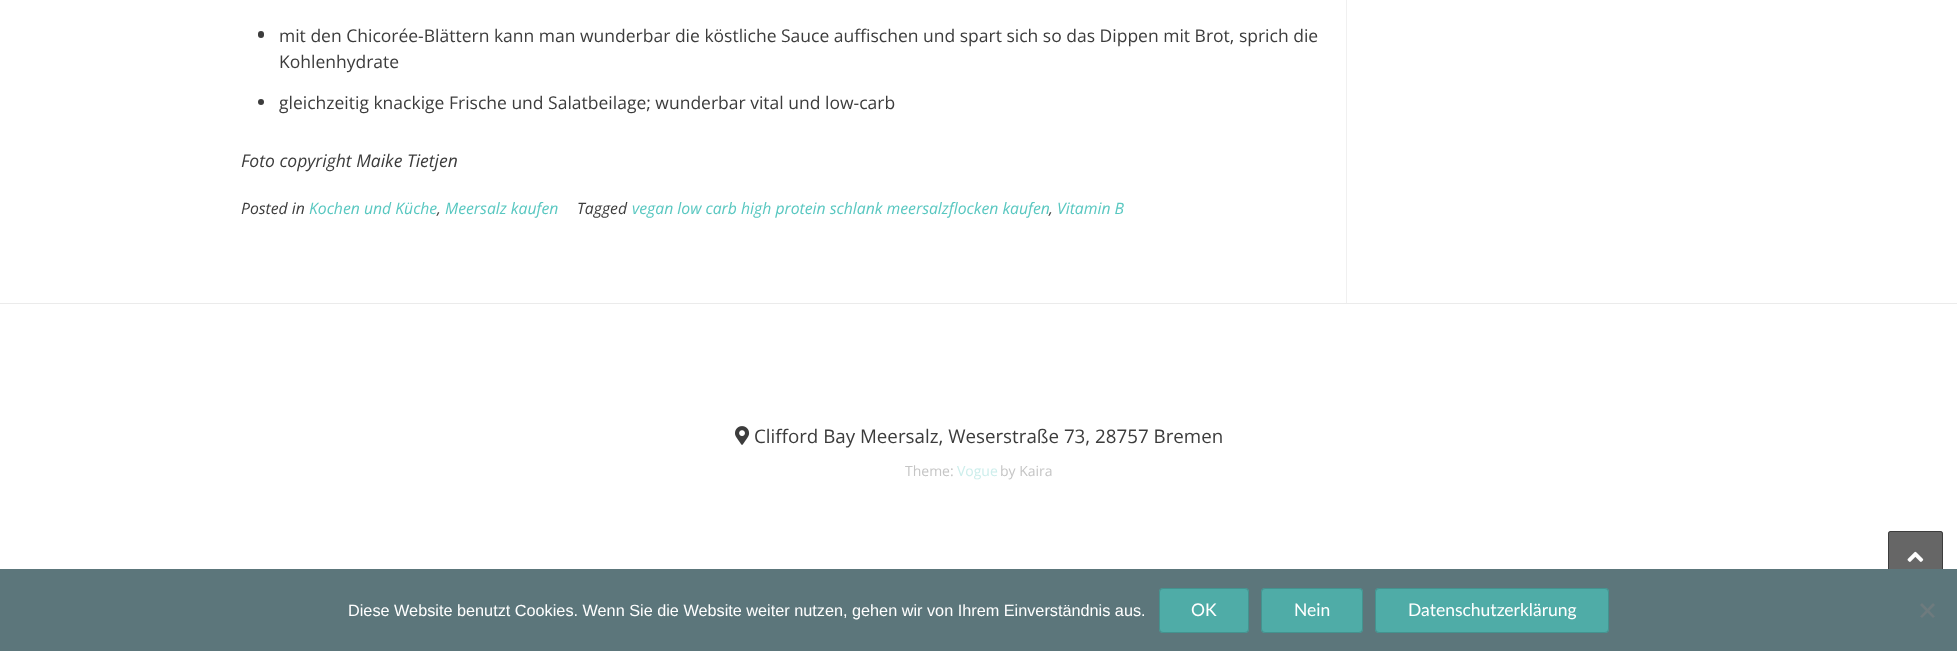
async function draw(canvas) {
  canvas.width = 1957
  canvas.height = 651
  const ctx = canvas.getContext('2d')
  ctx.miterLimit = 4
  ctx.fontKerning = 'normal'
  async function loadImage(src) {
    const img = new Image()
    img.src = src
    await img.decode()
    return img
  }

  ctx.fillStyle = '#fff'
  ctx.fillRect(0, 0, 1957, 651)
  ctx.fillStyle = '#f0f0f0'
  ctx.fillRect(1346, 0, 1, 303)
  ctx.fillStyle = '#3c3c3c'
  ctx.beginPath()
  ctx.roundRect(258, 31, 6, 7, 3)
  ctx.fill()
  ctx.font = '17.5px Open Sans'
  ctx.fillText('mit den Chicorée-Blättern kann man wunderbar die köstliche Sauce auffischen und spart sich so das Dippen mit Brot, sprich die', 279, 42)
  ctx.fillText('Kohlenhydrate', 279, 68)
  ctx.beginPath()
  ctx.arc(261, 102, 3, 0, 2 * Math.PI)
  ctx.fill()
  ctx.fillText('gleichzeitig knackige Frische und Salatbeilage; wunderbar vital und low-carb', 279, 109)
  ctx.font = 'italic 17.5px Open Sans'
  ctx.fillText('Foto copyright Maike Tietjen', 241, 167)
  ctx.font = 'italic 15.75px Open Sans'
  ctx.fillText('Posted in', 241, 214)
  ctx.fillStyle = '#58c7c0'
  ctx.fillText('Kochen und Küche', 309, 214)
  ctx.fillStyle = '#3c3c3c'
  ctx.fillText(',', 437, 214)
  ctx.fillStyle = '#58c7c0'
  ctx.fillText('Meersalz kaufen', 445, 214)
  ctx.fillStyle = '#3c3c3c'
  ctx.fillText('Tagged', 577, 214)
  ctx.fillStyle = '#58c7c0'
  ctx.fillText('vegan low carb high protein schlank meersalzflocken kaufen', 632, 214)
  ctx.fillStyle = '#3c3c3c'
  ctx.fillText(',', 1049, 214)
  ctx.fillStyle = '#58c7c0'
  ctx.fillText('Vitamin B', 1057, 214)
  ctx.fillStyle = '#ebebeb'
  ctx.fillRect(0, 303, 1957, 1)
  ctx.drawImage(await loadImage('image0.png'), 735, 426, 15, 19)
  ctx.font = '18.75px Open Sans'
  ctx.fillStyle = '#3c3c3c'
  ctx.fillText('Clifford Bay Meersalz, Weserstraße 73, 28757 Bremen', 754, 443)
  ctx.font = '14px Open Sans'
  ctx.fillStyle = '#c5c5c5'
  ctx.fillText('Theme:', 905, 476)
  ctx.fillStyle = '#cdeeec'
  ctx.fillText('Vogue', 957, 476)
  ctx.fillStyle = '#c5c5c5'
  ctx.fillText('by Kaira', 1000, 476)
  ctx.fillStyle = '#666'
  ctx.beginPath()
  ctx.roundRect(1888, 531, 55, 55, 2.5)
  ctx.fill()
  ctx.beginPath()
  ctx.roundRect(1888.5, 531.5, 54, 54, 2)
  ctx.strokeStyle = '#00000066'
  ctx.stroke()
  ctx.drawImage(await loadImage('image1.png'), 1907, 551, 17, 11)
  ctx.fillStyle = '#5c767b'
  ctx.fillRect(0, 569, 1957, 82)
  ctx.font = '16.25px Liberation Sans'
  ctx.fillStyle = '#fff'
  ctx.fillText('Diese Website benutzt Cookies. Wenn Sie die Website weiter nutzen, gehen wir von Ihrem Einverständnis aus.', 348, 616)
  ctx.fillStyle = '#4faca7'
  ctx.beginPath()
  ctx.roundRect(1159, 588, 90, 45, 4)
  ctx.fill()
  ctx.beginPath()
  ctx.roundRect(1159.5, 588.5, 89, 44, 3.5)
  ctx.strokeStyle = '#00000024'
  ctx.stroke()
  ctx.font = '17.5px Lato'
  ctx.fillStyle = '#fff'
  ctx.fillText('OK', 1191, 616)
  ctx.fillStyle = '#4faca7'
  ctx.beginPath()
  ctx.roundRect(1261, 588, 102, 45, 4)
  ctx.fill()
  ctx.beginPath()
  ctx.roundRect(1261.5, 588.5, 101, 44, 3.5)
  ctx.stroke()
  ctx.fillStyle = '#fff'
  ctx.fillText('Nein', 1294, 616)
  ctx.fillStyle = '#4faca7'
  ctx.beginPath()
  ctx.roundRect(1375, 588, 234, 45, 4)
  ctx.fill()
  ctx.beginPath()
  ctx.roundRect(1375.5, 588.5, 233, 44, 3.5)
  ctx.stroke()
  ctx.fillStyle = '#fff'
  ctx.fillText('Datenschutzerklärung', 1408, 616)
  ctx.fillStyle = '#6e7b7e'
  ctx.beginPath()
  ctx.moveTo(1933, 603)
  ctx.lineTo(1935, 605)
  ctx.lineTo(1922, 618)
  ctx.lineTo(1920, 616.5)
  ctx.closePath()
  ctx.fill()
  ctx.beginPath()
  ctx.moveTo(1920, 605)
  ctx.lineTo(1922, 603)
  ctx.lineTo(1935, 616.5)
  ctx.lineTo(1933, 618)
  ctx.closePath()
  ctx.fill()
}

draw(document.querySelector('canvas'))
